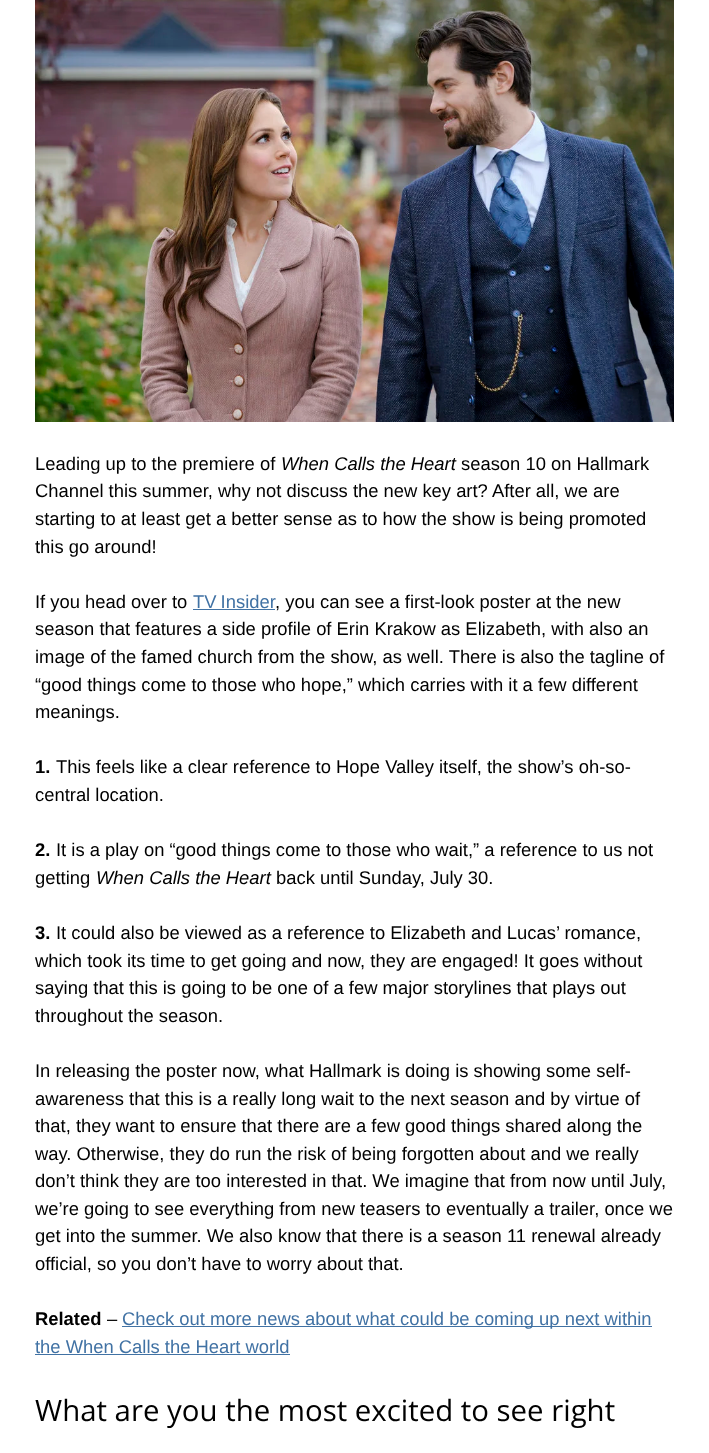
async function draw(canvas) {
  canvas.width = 709
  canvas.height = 1453
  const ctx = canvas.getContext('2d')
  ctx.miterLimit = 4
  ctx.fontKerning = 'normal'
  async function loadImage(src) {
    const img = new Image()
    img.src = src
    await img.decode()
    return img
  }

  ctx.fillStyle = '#fff'
  ctx.fillRect(0, 0, 709, 1453)
  ctx.drawImage(await loadImage('image0.png'), 35, 0, 639, 422)
  ctx.font = '18.4px Liberation Sans'
  ctx.fillStyle = '#000'
  ctx.fillText('Leading up to the premiere of', 35, 470)
  ctx.font = 'italic 18.4px Liberation Sans'
  ctx.fillText('When Calls the Heart', 281, 470)
  ctx.font = '18.4px Liberation Sans'
  ctx.fillText('season 10 on Hallmark', 461, 470)
  ctx.fillText('Channel this summer, why not discuss the new key art? After all, we are', 35, 497)
  ctx.fillText('starting to at least get a better sense as to how the show is being promoted', 35, 525)
  ctx.fillText('this go around!', 35, 553)
  ctx.fillText('If you head over to', 35, 608)
  ctx.wordSpacing = '-1px'
  ctx.fillStyle = '#4172a4'
  ctx.fillText('TV Insider', 193, 608)
  ctx.fillRect(193, 609, 82, 1)
  ctx.wordSpacing = '0px'
  ctx.fillStyle = '#000'
  ctx.fillText(', you can see a first-look poster at the new', 275, 608)
  ctx.fillText('season that features a side profile of Erin Krakow as Elizabeth, with also an', 35, 635)
  ctx.fillText('image of the famed church from the show, as well. There is also the tagline of', 35, 663)
  ctx.fillText('“good things come to those who hope,” which carries with it a few different', 35, 691)
  ctx.fillText('meanings.', 35, 718)
  ctx.font = 'bold 18.4px Liberation Sans'
  ctx.fillText('1.', 35, 773)
  ctx.font = '18.4px Liberation Sans'
  ctx.fillText('This feels like a clear reference to Hope Valley itself, the show’s oh-so-', 56, 773)
  ctx.fillText('central location.', 35, 801)
  ctx.font = 'bold 18.4px Liberation Sans'
  ctx.fillText('2.', 35, 856)
  ctx.font = '18.4px Liberation Sans'
  ctx.fillText('It is a play on “good things come to those who wait,” a reference to us not', 56, 856)
  ctx.fillText('getting', 35, 884)
  ctx.font = 'italic 18.4px Liberation Sans'
  ctx.fillText('When Calls the Heart', 96, 884)
  ctx.font = '18.4px Liberation Sans'
  ctx.fillText('back until Sunday, July 30.', 276, 884)
  ctx.font = 'bold 18.4px Liberation Sans'
  ctx.fillText('3.', 35, 939)
  ctx.font = '18.4px Liberation Sans'
  ctx.fillText('It could also be viewed as a reference to Elizabeth and Lucas’ romance,', 56, 939)
  ctx.fillText('which took its time to get going and now, they are engaged! It goes without', 35, 967)
  ctx.fillText('saying that this is going to be one of a few major storylines that plays out', 35, 994)
  ctx.fillText('throughout the season.', 35, 1022)
  ctx.fillText('In releasing the poster now, what Hallmark is doing is showing some self-', 35, 1077)
  ctx.fillText('awareness that this is a really long wait to the next season and by virtue of', 35, 1105)
  ctx.fillText('that, they want to ensure that there are a few good things shared along the', 35, 1132)
  ctx.fillText('way. Otherwise, they do run the risk of being forgotten about and we really', 35, 1160)
  ctx.fillText('don’t think they are too interested in that. We imagine that from now until July,', 35, 1187)
  ctx.fillText('we’re going to see everything from new teasers to eventually a trailer, once we', 35, 1215)
  ctx.fillText('get into the summer. We also know that there is a season 11 renewal already', 35, 1242)
  ctx.fillText('official, so you don’t have to worry about that.', 35, 1270)
  ctx.font = 'bold 18.4px Liberation Sans'
  ctx.fillText('Related', 35, 1325)
  ctx.font = '18.4px Liberation Sans'
  ctx.fillText('–', 107, 1325)
  ctx.fillStyle = '#4172a4'
  ctx.fillRect(122, 1326, 530, 1)
  ctx.fillText('Check out more news about what could be coming up next within', 122, 1325)
  ctx.fillText('the When Calls the Heart world', 35, 1353)
  ctx.fillRect(35, 1354, 255, 1)
  ctx.font = '29.4px Open Sans'
  ctx.fillStyle = '#000'
  ctx.fillText('What are you the most excited to see right', 35, 1421)
}

draw(document.querySelector('canvas'))
